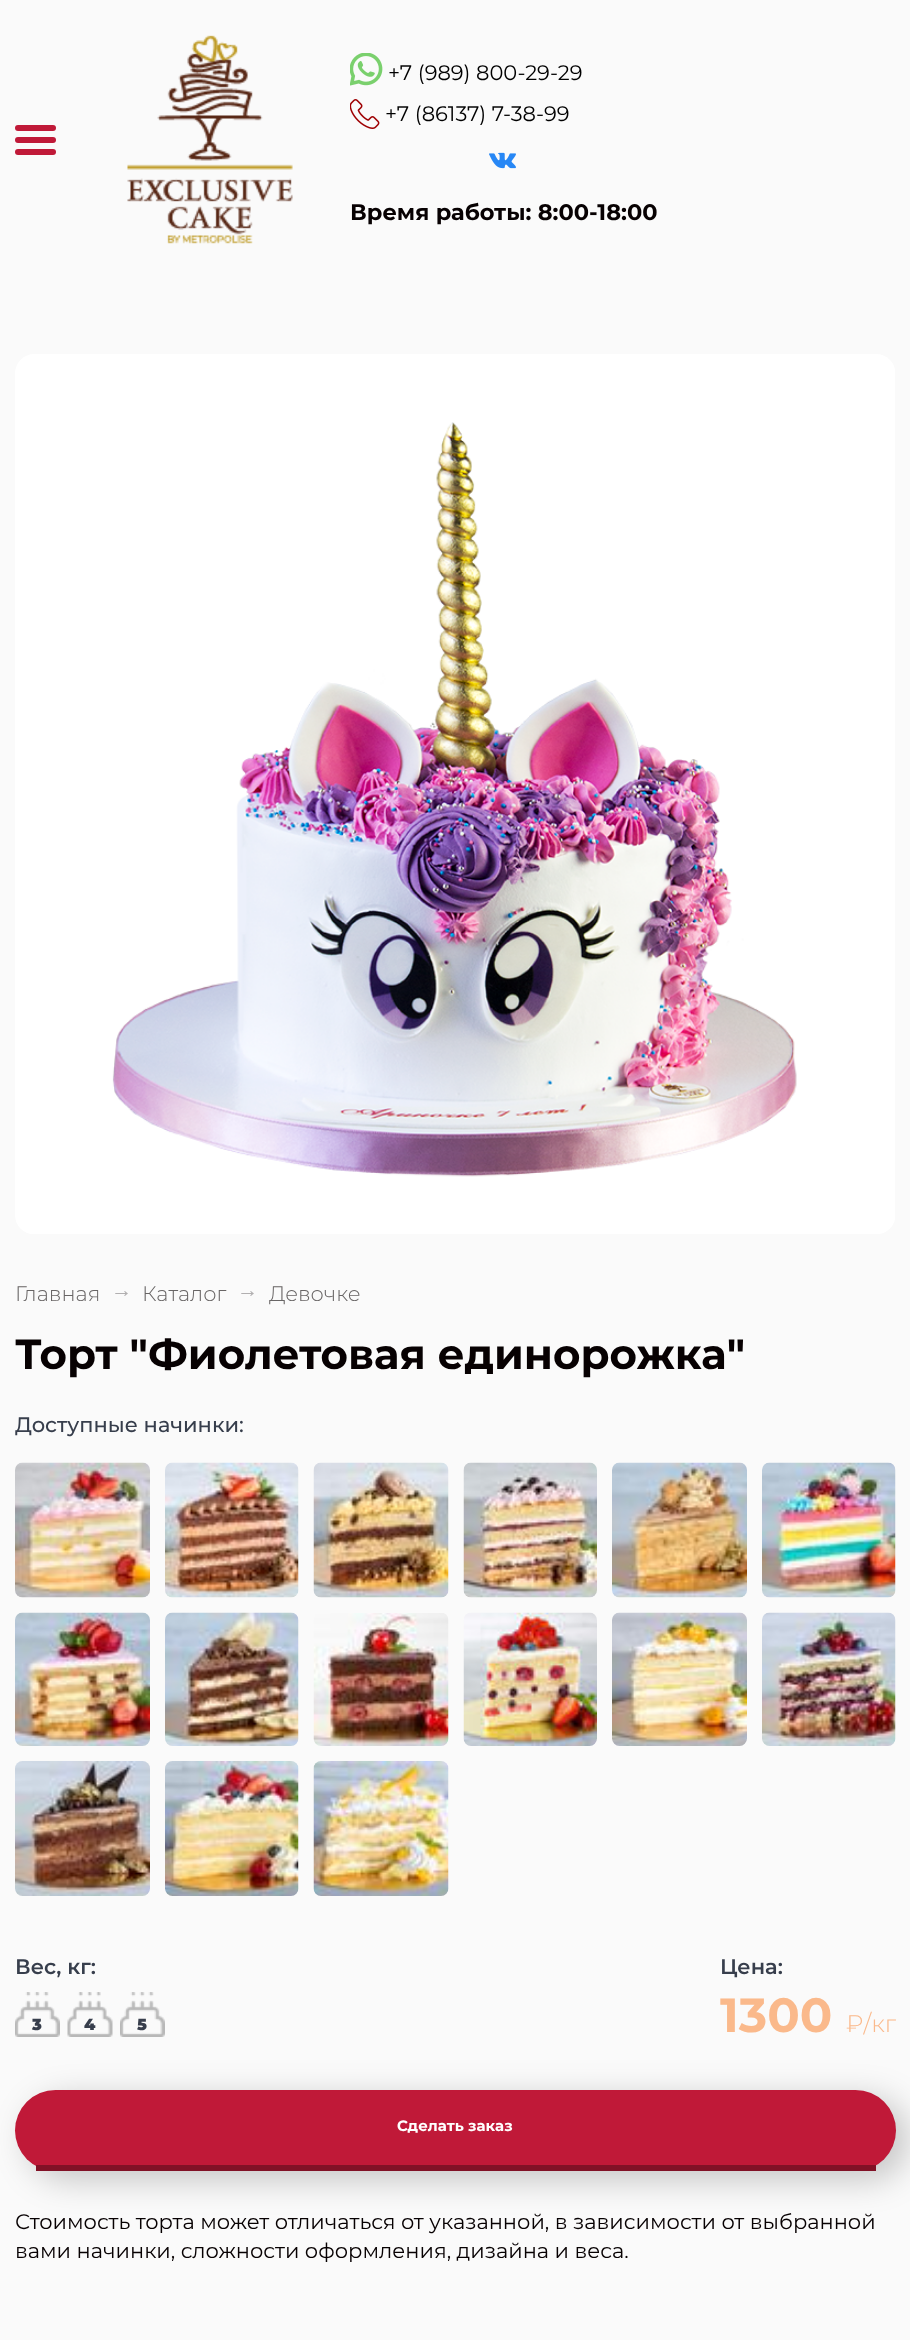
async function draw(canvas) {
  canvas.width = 910
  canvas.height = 2340
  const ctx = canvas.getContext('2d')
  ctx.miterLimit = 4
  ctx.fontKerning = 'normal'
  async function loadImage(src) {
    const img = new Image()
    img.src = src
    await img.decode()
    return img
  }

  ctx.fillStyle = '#fafafa'
  ctx.fillRect(0, 0, 910, 2340)
  ctx.fillStyle = '#c01938'
  ctx.beginPath()
  ctx.roundRect(15, 125, 41, 6, 3)
  ctx.fill()
  ctx.beginPath()
  ctx.roundRect(15, 137, 41, 6, 3)
  ctx.fill()
  ctx.beginPath()
  ctx.roundRect(15, 149, 41, 6, 3)
  ctx.fill()
  ctx.drawImage(await loadImage('image0.png'), 127, 35, 166, 209)
  ctx.drawImage(await loadImage('image1.png'), 350, 53, 33, 33)
  ctx.font = '21px Montserrat'
  ctx.fillStyle = '#000'
  ctx.fillText('+7 (989) 800-29-29', 388, 80)
  ctx.drawImage(await loadImage('image2.png'), 350, 99, 30, 30)
  ctx.fillText('+7 (86137) 7-38-99', 385, 121)
  ctx.drawImage(await loadImage('image3.png'), 489, 152, 27, 17)
  ctx.font = 'bold 22.5px Montserrat'
  ctx.fillStyle = '#070102'
  ctx.fillText('Время работы: 8:00-18:00', 350, 220)
  ctx.drawImage(await loadImage('image4.png'), 15, 354, 880, 880)
  ctx.font = '300 21px Montserrat'
  ctx.fillStyle = '#686565'
  ctx.fillText('Главная', 15, 1301)
  ctx.font = '21px Liberation Sans'
  ctx.fillStyle = '#b1afb0'
  ctx.fillText('→', 111, 1297)
  ctx.font = '300 21px Montserrat'
  ctx.fillStyle = '#686565'
  ctx.fillText('Каталог', 142, 1301)
  ctx.font = '21px Liberation Sans'
  ctx.fillStyle = '#b1afb0'
  ctx.fillText('→', 237, 1297)
  ctx.font = '300 21px Montserrat'
  ctx.fillStyle = '#686565'
  ctx.fillText('Девочке', 269, 1301)
  ctx.font = 'bold 42px Montserrat'
  ctx.fillStyle = '#070102'
  ctx.fillText('Торт "Фиолетовая единорожка"', 15, 1369)
  ctx.font = '500 21px Montserrat'
  ctx.fillStyle = '#373e4c'
  ctx.fillText('Доступные начинки:', 15, 1432)
  ctx.drawImage(await loadImage('image5.png'), 15, 1462, 135, 136)
  ctx.drawImage(await loadImage('image6.png'), 165, 1462, 134, 136)
  ctx.drawImage(await loadImage('image7.png'), 313, 1462, 136, 136)
  ctx.drawImage(await loadImage('image8.png'), 463, 1462, 134, 136)
  ctx.drawImage(await loadImage('image9.png'), 612, 1462, 135, 136)
  ctx.drawImage(await loadImage('image10.png'), 762, 1462, 134, 136)
  ctx.drawImage(await loadImage('image11.png'), 15, 1612, 135, 134)
  ctx.drawImage(await loadImage('image12.png'), 165, 1612, 134, 134)
  ctx.drawImage(await loadImage('image13.png'), 313, 1613, 136, 133)
  ctx.drawImage(await loadImage('image14.png'), 463, 1612, 134, 134)
  ctx.drawImage(await loadImage('image15.png'), 612, 1612, 135, 134)
  ctx.drawImage(await loadImage('image16.png'), 762, 1612, 134, 134)
  ctx.drawImage(await loadImage('image17.png'), 15, 1761, 135, 135)
  ctx.drawImage(await loadImage('image18.png'), 165, 1761, 134, 135)
  ctx.drawImage(await loadImage('image19.png'), 313, 1761, 136, 135)
  ctx.font = '600 21px Montserrat'
  ctx.fillText('Вес, кг:', 15, 1974)
  ctx.drawImage(await loadImage('image20.png'), 15, 1992, 45, 45)
  ctx.font = '900 16px Montserrat'
  ctx.fillText('3', 32, 2030)
  ctx.drawImage(await loadImage('image21.png'), 67, 1992, 46, 45)
  ctx.fillText('4', 84, 2030)
  ctx.drawImage(await loadImage('image20.png'), 120, 1992, 45, 45)
  ctx.fillText('5', 137, 2030)
  ctx.font = '600 21px Montserrat'
  ctx.fillText('Цена:', 720, 1974)
  ctx.font = 'bold 48px Montserrat'
  ctx.fillStyle = '#fab98b'
  ctx.fillText('1300', 720, 2032)
  ctx.font = '300 24px Montserrat'
  ctx.fillText('₽/кг', 846, 2032)
  ctx.fillStyle = '#00000033'
  ctx.filter = 'blur(16px)'
  ctx.beginPath()
  ctx.roundRect(26, 2097, 883, 84, 42)
  ctx.fill()
  ctx.filter = 'none'
  ctx.fillStyle = '#c01938'
  ctx.beginPath()
  ctx.roundRect(15, 2090, 881, 81, 40.5)
  ctx.fill()
  ctx.fillStyle = '#811126'
  ctx.fillRect(36, 2165, 840, 6)
  ctx.font = 'bold 15px Montserrat'
  ctx.fillStyle = '#fff'
  ctx.fillText('Сделать заказ', 397, 2131)
  ctx.font = '21px Montserrat'
  ctx.fillStyle = '#070102'
  ctx.fillText('Стоимость торта может отличаться от указанной, в зависимости от выбранной', 15, 2229)
  ctx.fillText('вами начинки, сложности оформления, дизайна и веса.', 15, 2258)
}

draw(document.querySelector('canvas'))
